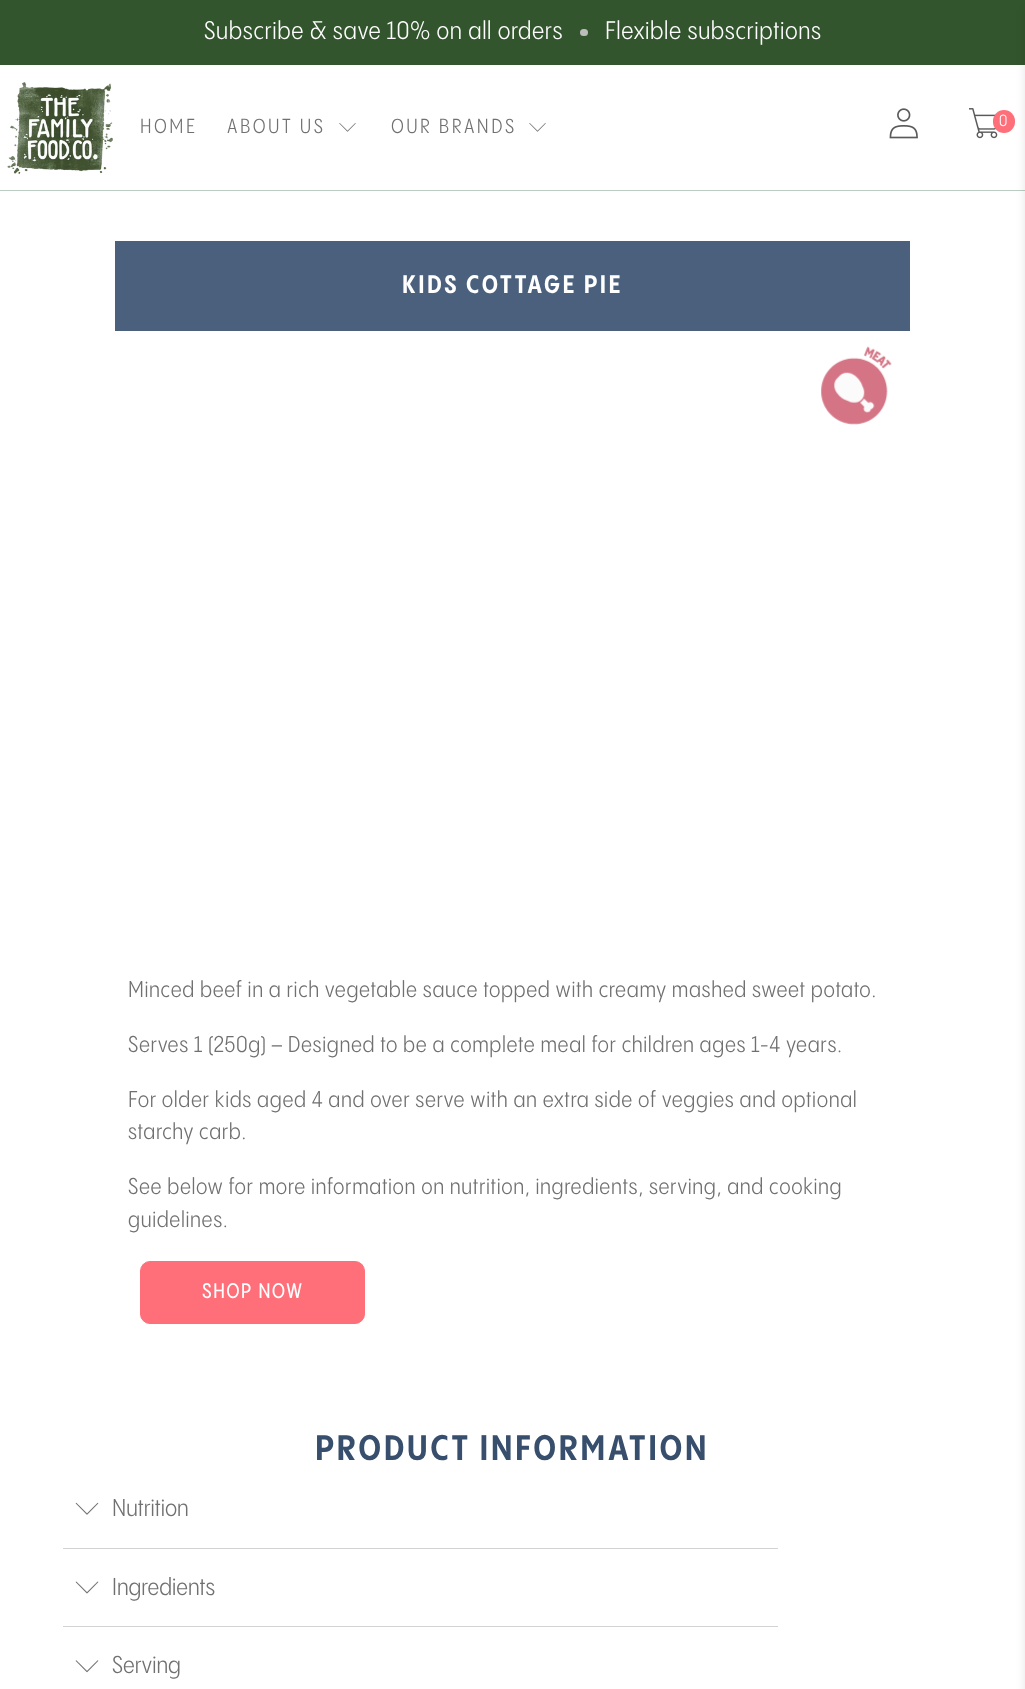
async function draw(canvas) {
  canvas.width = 1025
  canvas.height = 1689
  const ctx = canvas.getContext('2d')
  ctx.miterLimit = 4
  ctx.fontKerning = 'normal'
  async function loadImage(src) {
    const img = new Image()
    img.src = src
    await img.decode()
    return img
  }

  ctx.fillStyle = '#fff'
  ctx.fillRect(0, 0, 1025, 1689)
  ctx.fillStyle = '#33552d'
  ctx.fillRect(0, 0, 1025, 65)
  ctx.letterSpacing = '0.62px'
  ctx.font = '25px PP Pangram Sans'
  ctx.fillStyle = '#fff'
  ctx.fillText('Subscribe & save 10% on all orders', 204, 39)
  ctx.fillStyle = '#bdbdbd'
  ctx.beginPath()
  ctx.roundRect(580, 29, 8, 7, 3.5)
  ctx.fill()
  ctx.fillStyle = '#fff'
  ctx.fillText('Flexible subscriptions', 605, 39)
  ctx.fillStyle = '#bcccc5'
  ctx.fillRect(0, 190, 1025, 1)
  ctx.drawImage(await loadImage('image3.png'), 969, 108, 29, 31)
  ctx.fillStyle = '#ff6f79'
  ctx.beginPath()
  ctx.roundRect(993, 110, 22, 23, 11)
  ctx.fill()
  ctx.fillStyle = '#0a0a0a1a'
  ctx.filter = 'blur(5px)'
  ctx.beginPath()
  ctx.rect(1025, 10, 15, 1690)
  ctx.fill()
  ctx.filter = 'none'
  ctx.drawImage(await loadImage('image0.png'), 7, 82, 106, 93)
  ctx.letterSpacing = '2.5px'
  ctx.font = '20px PP Pangram Sans'
  ctx.fillStyle = '#707070'
  ctx.fillText('HOME', 140, 133)
  ctx.fillText('ABOUT US', 227, 133)
  ctx.drawImage(await loadImage('image1.png'), 339, 123, 17, 9)
  ctx.fillText('OUR BRANDS', 391, 133)
  ctx.drawImage(await loadImage('image1.png'), 529, 123, 17, 9)
  ctx.drawImage(await loadImage('image2.png'), 889, 108, 29, 31)
  ctx.letterSpacing = '1px'
  ctx.font = '16px PP Pangram Sans'
  ctx.fillStyle = '#fff'
  ctx.fillText('0', 999, 126)
  ctx.fillStyle = '#4b607c'
  ctx.fillRect(115, 241, 795, 90)
  ctx.letterSpacing = '2.5px'
  ctx.font = 'bold 25px PP Pangram Sans'
  ctx.fillStyle = '#fff'
  ctx.fillText('KIDS COTTAGE PIE', 402, 293)
  ctx.drawImage(await loadImage('image4.png'), 821, 346, 71, 79)
  ctx.letterSpacing = '0.62px'
  ctx.font = '22.5px PP Pangram Sans'
  ctx.fillStyle = '#707070'
  ctx.fillText('Minced beef in a rich vegetable sauce topped with creamy mashed sweet potato.', 128, 997)
  ctx.fillText('Serves 1 (250g) – Designed to be a complete meal for children ages 1-4 years.', 128, 1052)
  ctx.fillText('For older kids aged 4 and over serve with an extra side of veggies and optional', 128, 1107)
  ctx.fillText('starchy carb.', 128, 1139)
  ctx.fillText('See below for more information on nutrition, ingredients, serving, and cooking', 128, 1194)
  ctx.fillText('guidelines.', 128, 1227)
  ctx.fillStyle = '#ff6f79'
  ctx.beginPath()
  ctx.roundRect(140.5, 1261.5, 224, 62, 9.5)
  ctx.fill()
  ctx.strokeStyle = '#ff6f79'
  ctx.stroke()
  ctx.letterSpacing = '1.75px'
  ctx.font = 'bold 20px "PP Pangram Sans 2"'
  ctx.fillStyle = '#fff'
  ctx.fillText('SHOP NOW', 202, 1298)
  ctx.letterSpacing = '2.5px'
  ctx.font = 'bold 35px PP Pangram Sans'
  ctx.fillStyle = '#374e6d'
  ctx.fillText('PRODUCT INFORMATION', 315, 1460)
  ctx.fillStyle = '#d3d3d3'
  ctx.fillRect(63, 1548, 715, 1)
  ctx.drawImage(await loadImage('image5.png'), 75, 1502, 24, 13)
  ctx.letterSpacing = '0px'
  ctx.font = '24px PP Pangram Sans'
  ctx.fillStyle = '#707070'
  ctx.fillText('Nutrition', 112, 1516)
  ctx.fillStyle = '#d3d3d3'
  ctx.fillRect(63, 1626, 715, 1)
  ctx.drawImage(await loadImage('image6.png'), 75, 1581, 24, 13)
  ctx.fillStyle = '#707070'
  ctx.fillText('Ingredients', 112, 1595)
  ctx.drawImage(await loadImage('image7.png'), 75, 1660, 24, 13)
  ctx.fillText('Serving', 112, 1673)
}

draw(document.querySelector('canvas'))
